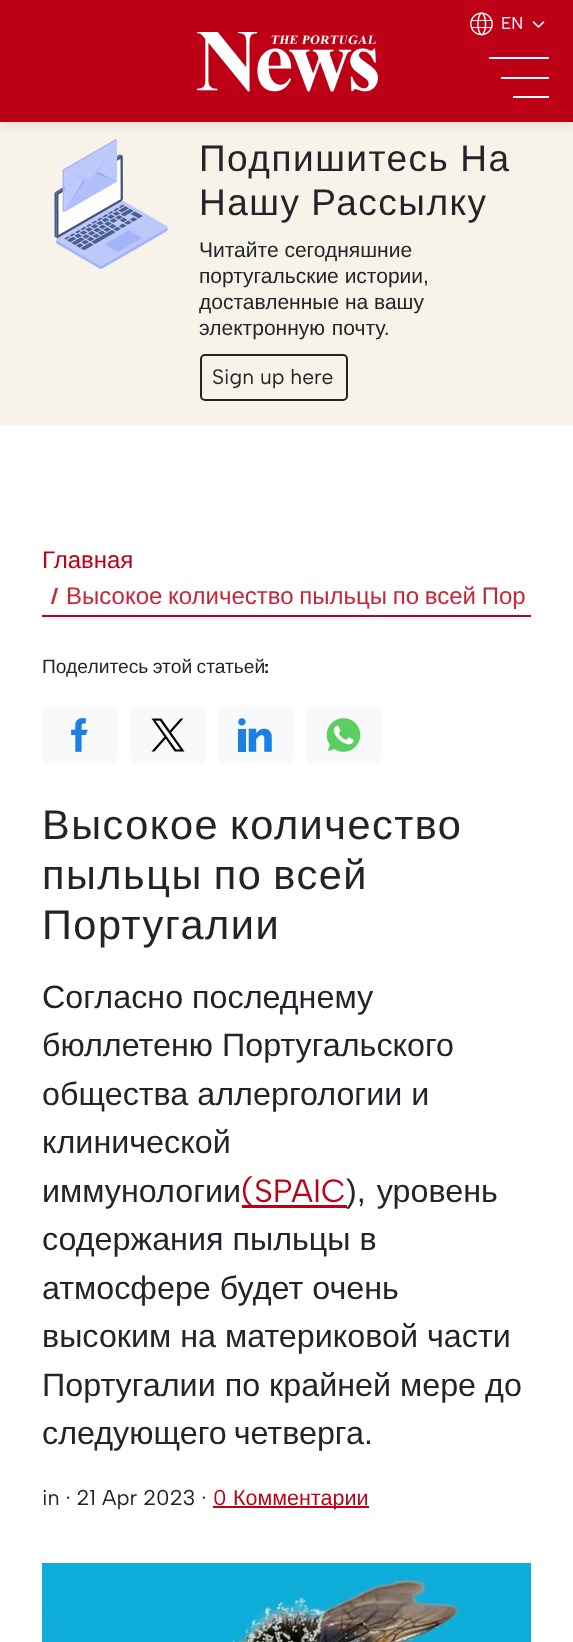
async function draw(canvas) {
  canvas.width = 573
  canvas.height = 1642
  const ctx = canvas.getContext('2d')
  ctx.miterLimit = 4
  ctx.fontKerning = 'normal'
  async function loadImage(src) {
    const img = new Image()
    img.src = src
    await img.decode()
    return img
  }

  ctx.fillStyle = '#fff'
  ctx.fillRect(0, 0, 573, 1642)
  ctx.fillStyle = '#f8f3e9'
  ctx.fillRect(0, 122, 573, 303)
  ctx.drawImage(await loadImage('image3.png'), 54, 139, 114, 130)
  ctx.fillStyle = '#0000000d'
  ctx.filter = 'blur(4px)'
  ctx.beginPath()
  ctx.rect(0, 8, 573, 121)
  ctx.fill()
  ctx.filter = 'none'
  ctx.fillStyle = '#be0016'
  ctx.fillRect(0, 0, 573, 122)
  ctx.drawImage(await loadImage('image0.png'), 470, 12, 23, 24)
  ctx.font = '17px Albert Sans'
  ctx.fillStyle = '#fff'
  ctx.fillText('EN', 501, 29)
  ctx.drawImage(await loadImage('image1.png'), 532, 21, 13, 7)
  ctx.fillRect(489, 57, 60, 2)
  ctx.fillRect(501, 77, 48, 2)
  ctx.fillRect(513, 96, 36, 2)
  ctx.drawImage(await loadImage('image2.png'), 197, 32, 181, 60)
  ctx.letterSpacing = '1.5px'
  ctx.wordSpacing = '-1px'
  ctx.font = '37px Liberation Sans'
  ctx.fillStyle = '#212529'
  ctx.fillText('Подпишитесь На', 199, 171)
  ctx.fillText('Нашу Рассылку', 199, 215)
  ctx.letterSpacing = '0px'
  ctx.wordSpacing = '0px'
  ctx.font = '21px Liberation Sans'
  ctx.fillText('Читайте сегодняшние', 199, 257)
  ctx.fillText('португальские истории,', 199, 283)
  ctx.fillText('доставленные на вашу', 199, 309)
  ctx.wordSpacing = '1px'
  ctx.fillText('электронную почту.', 199, 335)
  ctx.beginPath()
  ctx.roundRect(201, 355, 146, 45, 4)
  ctx.strokeStyle = '#212529'
  ctx.lineWidth = 2
  ctx.stroke()
  ctx.wordSpacing = '0px'
  ctx.font = '21px Albert Sans'
  ctx.fillText('Sign up here', 212, 384)
  ctx.fillStyle = '#be0016'
  ctx.fillRect(42, 615, 489, 2)
  ctx.font = '24px Liberation Sans'
  ctx.fillText('Главная', 42, 568)
  ctx.font = '24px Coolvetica'
  ctx.fillStyle = '#c82639'
  ctx.fillText('/', 51, 604)
  ctx.wordSpacing = '-1px'
  ctx.font = '24px Liberation Sans'
  ctx.fillText('Высокое количество пыльцы по всей Пор', 66, 604)
  ctx.font = '19.25px Liberation Sans'
  ctx.fillStyle = '#212529'
  ctx.fillText('Поделитесь этой статьей', 42, 673)
  ctx.wordSpacing = '0px'
  ctx.font = '19.25px Coolvetica'
  ctx.fillText(':', 265, 673)
  ctx.fillStyle = '#f8f9fa'
  ctx.beginPath()
  ctx.roundRect(42, 705, 75, 59, 6)
  ctx.fill()
  ctx.drawImage(await loadImage('image4.png'), 71, 718, 17, 34)
  ctx.beginPath()
  ctx.roundRect(131, 705, 75, 59, 6)
  ctx.fill()
  ctx.drawImage(await loadImage('image5.png'), 151, 718, 34, 34)
  ctx.beginPath()
  ctx.roundRect(218, 705, 75, 59, 6)
  ctx.fill()
  ctx.drawImage(await loadImage('image6.png'), 238, 718, 34, 34)
  ctx.beginPath()
  ctx.roundRect(306, 705, 75, 59, 6)
  ctx.fill()
  ctx.drawImage(await loadImage('image7.png'), 326, 718, 35, 34)
  ctx.letterSpacing = '1.5px'
  ctx.wordSpacing = '-2px'
  ctx.font = '41.5px Liberation Sans'
  ctx.fillStyle = '#212529'
  ctx.fillText('Высокое количество', 42, 839)
  ctx.fillText('пыльцы по всей', 42, 889)
  ctx.wordSpacing = '0px'
  ctx.fillText('Португалии', 42, 939)
  ctx.letterSpacing = '0px'
  ctx.font = '32.3px Liberation Sans'
  ctx.fillText('Согласно последнему', 42, 1008)
  ctx.fillText('бюллетеню Португальского', 42, 1056)
  ctx.fillText('общества аллергологии и', 42, 1105)
  ctx.fillText('клинической', 42, 1153)
  ctx.fillText('иммунологии', 42, 1202)
  ctx.fillStyle = '#be0016'
  ctx.fillRect(242, 1205, 105, 3)
  ctx.font = '32.3px Albert Sans'
  ctx.fillText('(SPAIC', 241, 1202)
  ctx.wordSpacing = '2px'
  ctx.font = '32.3px Liberation Sans'
  ctx.fillStyle = '#212529'
  ctx.fillText('), уровень', 346, 1202)
  ctx.wordSpacing = '0px'
  ctx.fillText('содержания пыльцы в', 42, 1250)
  ctx.fillText('атмосфере будет очень', 42, 1299)
  ctx.fillText('высоким на материковой части', 42, 1347)
  ctx.fillText('Португалии по крайней мере до', 42, 1396)
  ctx.wordSpacing = '-2px'
  ctx.fillText('следующего четверга.', 42, 1444)
  ctx.wordSpacing = '0px'
  ctx.font = '21.5px Albert Sans'
  ctx.fillText('in · 21 Apr 2023 ·', 42, 1505)
  ctx.fillStyle = '#be0016'
  ctx.fillText('0', 213, 1505)
  ctx.fillRect(213, 1506, 156, 2)
  ctx.font = '21.5px Liberation Sans'
  ctx.fillText('Комментарии', 233, 1505)
  ctx.drawImage(await loadImage('image8.png'), 42, 1563, 489, 79)
}

draw(document.querySelector('canvas'))
